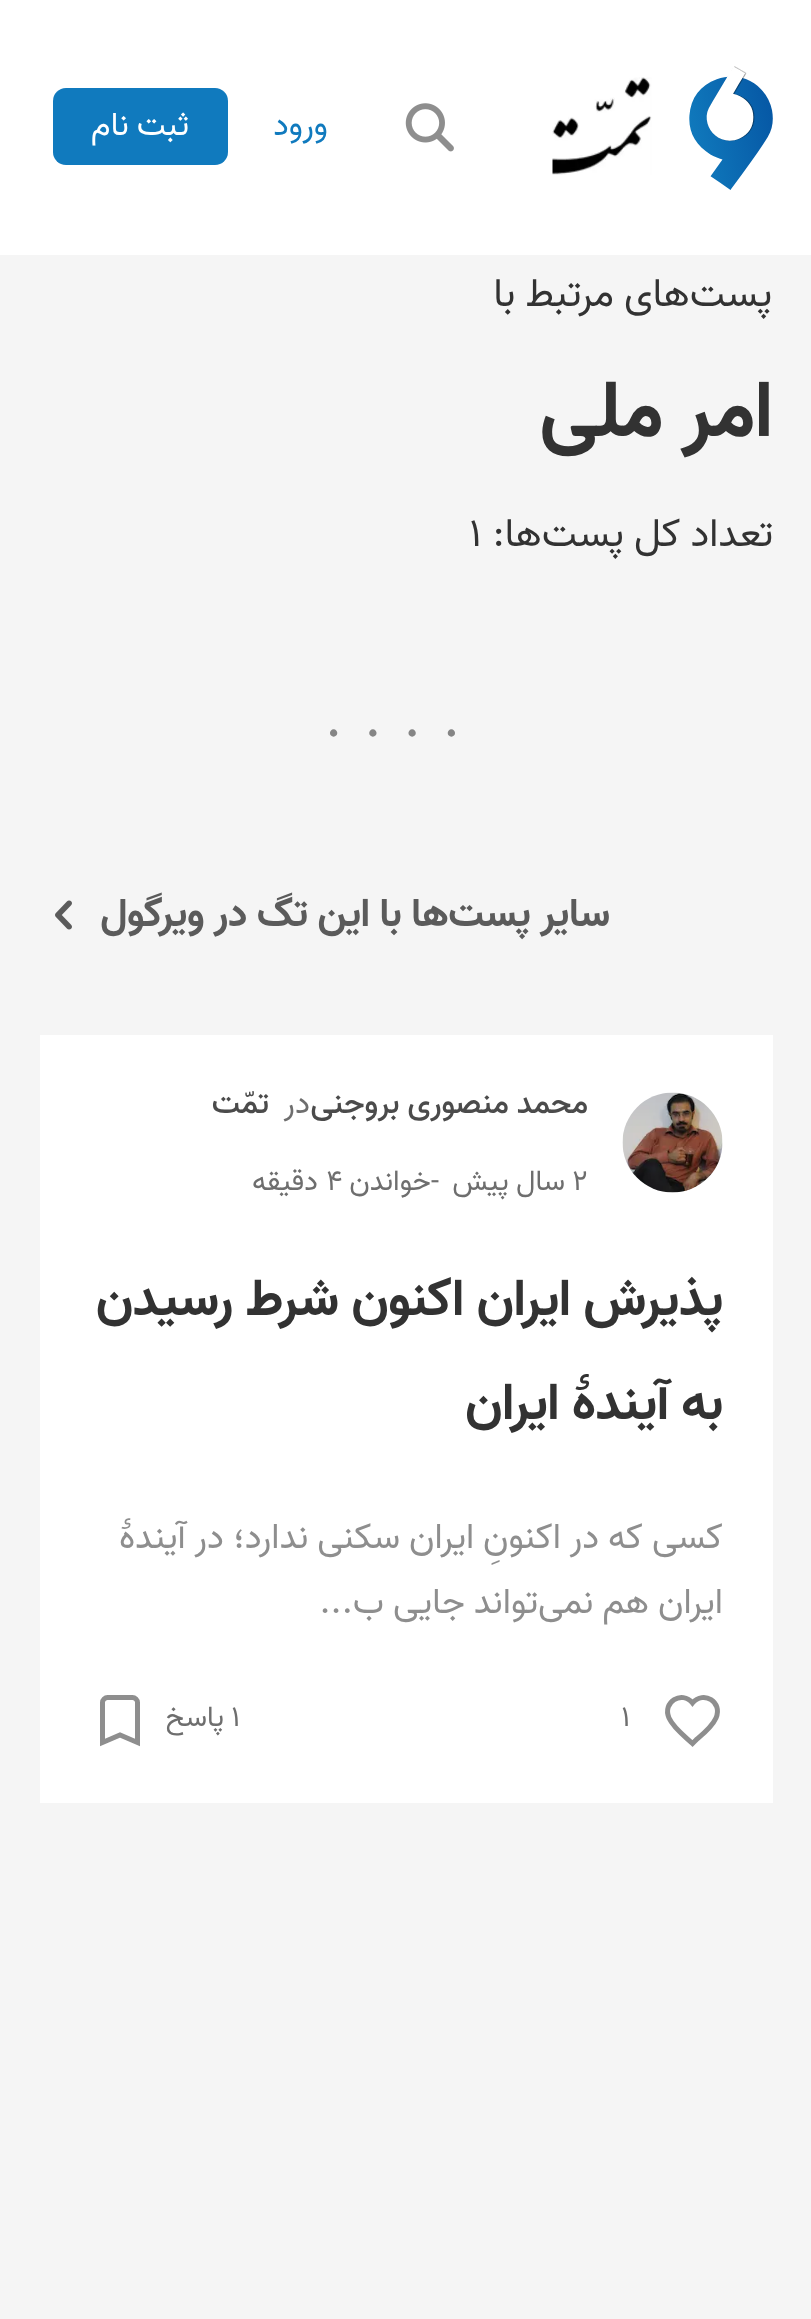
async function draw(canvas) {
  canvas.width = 811
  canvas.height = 2319
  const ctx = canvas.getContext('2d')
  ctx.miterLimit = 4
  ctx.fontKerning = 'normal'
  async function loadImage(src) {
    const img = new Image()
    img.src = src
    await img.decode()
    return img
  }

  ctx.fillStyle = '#fff'
  ctx.fillRect(0, 0, 811, 2319)
  ctx.drawImage(await loadImage('image0.png'), 689, 66, 84, 124)
  ctx.drawImage(await loadImage('image1.png'), 552, 77, 100, 98)
  ctx.drawImage(await loadImage('image2.png'), 405, 103, 49, 49)
  ctx.direction = 'rtl'
  ctx.font = '33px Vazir'
  ctx.fillStyle = '#107abe'
  ctx.fillText('ورود', 328, 135)
  ctx.beginPath()
  ctx.roundRect(53, 88, 175, 77, 13)
  ctx.fill()
  ctx.fillStyle = '#fff'
  ctx.fillText('ثبت نام', 189, 135)
  ctx.fillStyle = '#f5f5f5'
  ctx.fillRect(0, 255, 811, 2064)
  ctx.font = '40px Vazir'
  ctx.fillStyle = '#323232'
  ctx.fillText('پست‌های مرتبط با', 772, 306)
  ctx.font = 'bold 80px Vazir'
  ctx.fillText('امر ملی', 773, 436)
  ctx.font = '40px Vazir'
  ctx.fillText('تعداد کل پست‌ها:', 773, 546)
  ctx.direction = 'ltr'
  ctx.fillText('۱', 469, 546)
  ctx.letterSpacing = '28px'
  ctx.font = 'bold 45px Liberation Serif'
  ctx.fillStyle = '#858585'
  ctx.fillText('....', 328, 736)
  ctx.letterSpacing = '0px'
  ctx.direction = 'rtl'
  ctx.font = 'bold 40px Vazir'
  ctx.fillStyle = '#5b5b5b'
  ctx.fillText('سایر پست‌ها با این تگ در ویرگول', 610, 926)
  ctx.drawImage(await loadImage('image3.png'), 55, 900, 17, 30)
  ctx.fillStyle = '#fff'
  ctx.fillRect(40, 1035, 733, 768)
  ctx.drawImage(await loadImage('image4.png'), 622, 1092, 101, 101)
  ctx.font = '500 32px Vazir'
  ctx.fillStyle = '#4b4b4b'
  ctx.fillText('محمد منصوری بروجنی', 588, 1113)
  ctx.font = '32px Vazir'
  ctx.fillStyle = '#6e6e6e'
  ctx.fillText('در', 310, 1113)
  ctx.font = '500 32px Vazir'
  ctx.fillStyle = '#4b4b4b'
  ctx.fillText('تمّت', 269, 1113)
  ctx.direction = 'ltr'
  ctx.font = '29px Vazir'
  ctx.fillStyle = '#6e6e6e'
  ctx.fillText('۲', 572, 1190)
  ctx.direction = 'rtl'
  ctx.fillText('سال پیش', 565, 1190)
  ctx.direction = 'ltr'
  ctx.fillText('-', 431, 1190)
  ctx.direction = 'rtl'
  ctx.fillText('خواندن', 431, 1190)
  ctx.direction = 'ltr'
  ctx.fillText('۴', 326, 1190)
  ctx.direction = 'rtl'
  ctx.fillText('دقیقه', 318, 1190)
  ctx.font = 'bold 52px Vazir'
  ctx.fillStyle = '#323232'
  ctx.fillText('پذیرش ایران اکنون شرط رسیدن', 723, 1315)
  ctx.fillText('به آیندهٔ ایران', 723, 1419)
  ctx.font = '36px Vazir'
  ctx.fillStyle = '#8e8e8e'
  ctx.fillText('کسی که در اکنونِ ایران سکنی ندارد؛ در آیندهٔ', 723, 1548)
  ctx.fillText('ایران هم نمی‌تواند جایی ب...', 723, 1613)
  ctx.beginPath()
  ctx.moveTo(692.5, 1743.5)
  ctx.bezierCurveTo(684.5, 1736, 673.5, 1728, 669, 1718)
  ctx.bezierCurveTo(662, 1702, 682, 1690, 692.5, 1703)
  ctx.bezierCurveTo(703.5, 1690, 723, 1702, 716, 1718)
  ctx.bezierCurveTo(712, 1727, 703, 1734, 696, 1740)
  ctx.closePath()
  ctx.strokeStyle = '#8e8e8e'
  ctx.lineWidth = 5
  ctx.stroke()
  ctx.direction = 'ltr'
  ctx.font = '29px Vazir'
  ctx.fillStyle = '#6e6e6e'
  ctx.fillText('۱', 621, 1726)
  ctx.fillText('۱', 231, 1726)
  ctx.direction = 'rtl'
  ctx.fillText('پاسخ', 224, 1726)
  ctx.beginPath()
  ctx.moveTo(132.5, 1697.5)
  ctx.bezierCurveTo(135, 1697.5, 137.5, 1700, 137.5, 1702.5)
  ctx.lineTo(137.5, 1742.5)
  ctx.lineTo(120, 1735)
  ctx.lineTo(102.5, 1742.5)
  ctx.lineTo(102.5, 1702.5)
  ctx.bezierCurveTo(102.5, 1700, 105, 1697.5, 107.5, 1697.5)
  ctx.closePath()
  ctx.stroke()
}

draw(document.querySelector('canvas'))
